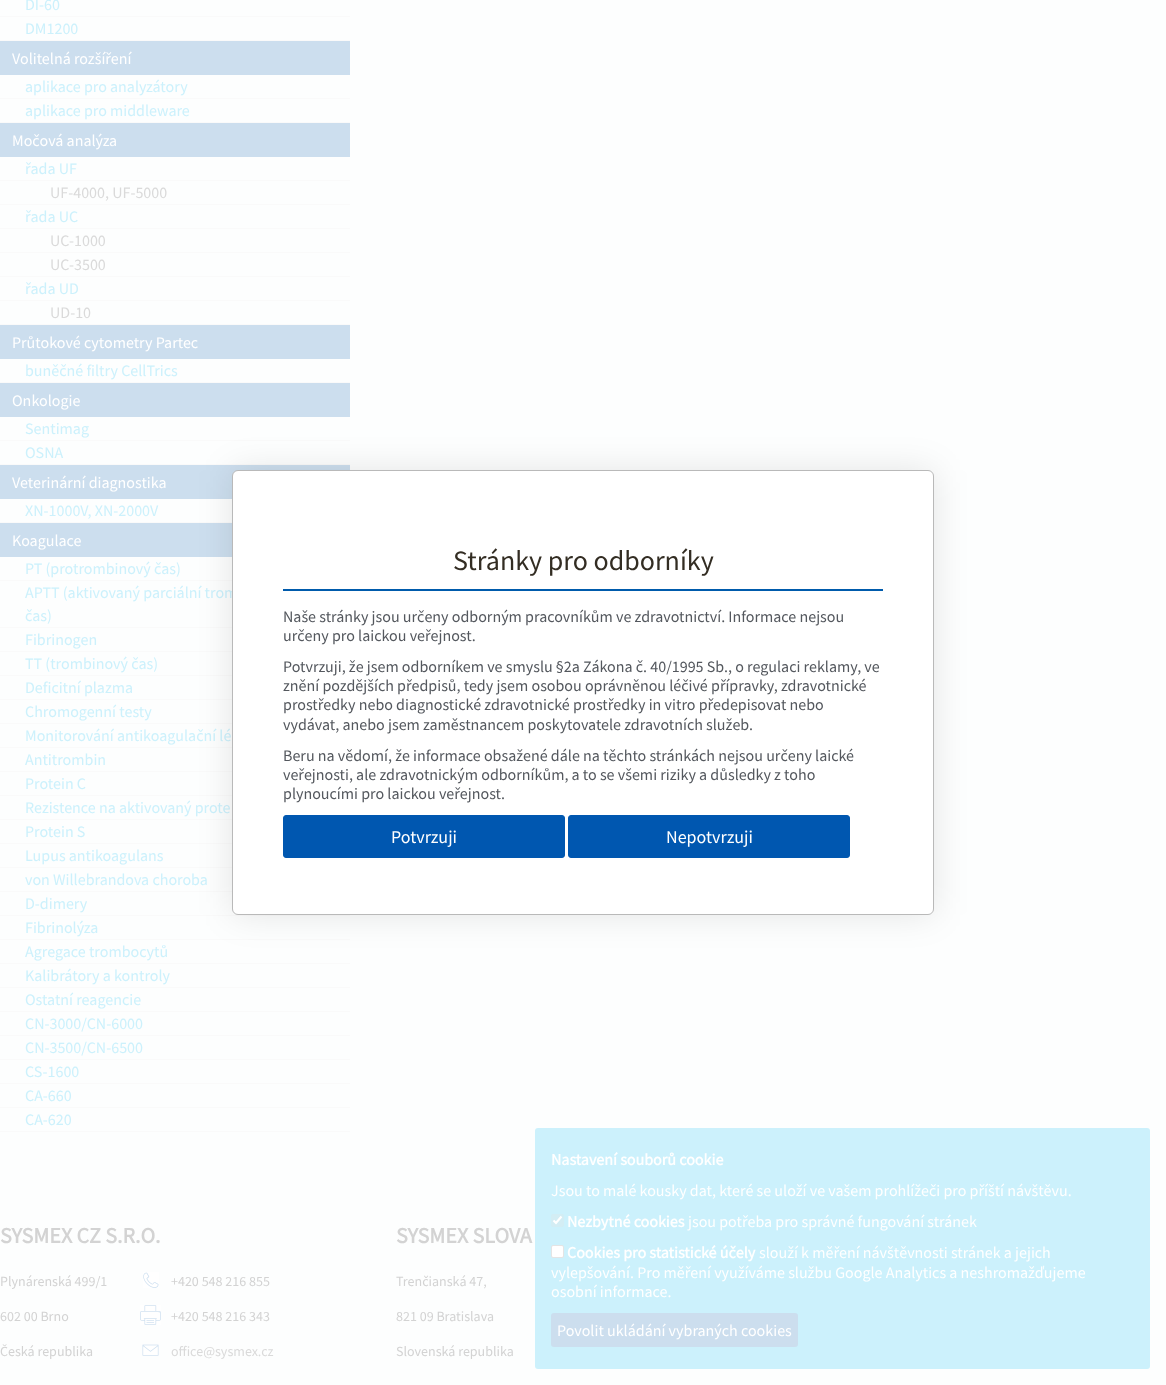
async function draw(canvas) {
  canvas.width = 1166
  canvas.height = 1385
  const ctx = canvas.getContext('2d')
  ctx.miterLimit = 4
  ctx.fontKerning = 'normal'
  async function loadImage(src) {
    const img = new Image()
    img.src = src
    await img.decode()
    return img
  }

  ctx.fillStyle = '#fdfefe'
  ctx.fillRect(0, 0, 1166, 1385)
  ctx.fillStyle = '#fafafa'
  ctx.fillRect(0, 16, 350, 1)
  ctx.font = '16px Source Sans Pro'
  ctx.fillStyle = '#ccf1fc'
  ctx.fillText('DI-60', 25, 10)
  ctx.fillStyle = '#fafafa'
  ctx.fillRect(0, 40, 350, 1)
  ctx.fillStyle = '#ccf1fc'
  ctx.fillText('DM1200', 25, 34)
  ctx.fillStyle = '#ccdeee'
  ctx.fillRect(0, 41, 350, 34)
  ctx.fillStyle = '#fff'
  ctx.fillText('Volitelná rozšíření', 12, 64)
  ctx.fillStyle = '#fafafa'
  ctx.fillRect(0, 98, 350, 1)
  ctx.fillStyle = '#ccf1fc'
  ctx.fillText('aplikace pro analyzátory', 25, 92)
  ctx.fillStyle = '#fafafa'
  ctx.fillRect(0, 122, 350, 1)
  ctx.fillStyle = '#ccf1fc'
  ctx.fillText('aplikace pro middleware', 25, 116)
  ctx.fillStyle = '#ccdeee'
  ctx.fillRect(0, 123, 350, 34)
  ctx.fillStyle = '#fff'
  ctx.fillText('Močová analýza', 12, 146)
  ctx.fillStyle = '#fafafa'
  ctx.fillRect(0, 180, 350, 1)
  ctx.fillStyle = '#ccf1fc'
  ctx.fillText('řada UF', 25, 174)
  ctx.fillStyle = '#fafafa'
  ctx.fillRect(0, 204, 350, 1)
  ctx.fillStyle = '#dadada'
  ctx.fillText('UF-4000, UF-5000', 50, 198)
  ctx.fillStyle = '#fafafa'
  ctx.fillRect(0, 228, 350, 1)
  ctx.fillStyle = '#ccf1fc'
  ctx.fillText('řada UC', 25, 222)
  ctx.fillStyle = '#fafafa'
  ctx.fillRect(0, 252, 350, 1)
  ctx.fillStyle = '#dadada'
  ctx.fillText('UC-1000', 50, 246)
  ctx.fillStyle = '#fafafa'
  ctx.fillRect(0, 276, 350, 1)
  ctx.fillStyle = '#dadada'
  ctx.fillText('UC-3500', 50, 270)
  ctx.fillStyle = '#fafafa'
  ctx.fillRect(0, 300, 350, 1)
  ctx.fillStyle = '#ccf1fc'
  ctx.fillText('řada UD', 25, 294)
  ctx.fillStyle = '#fafafa'
  ctx.fillRect(0, 324, 350, 1)
  ctx.fillStyle = '#dadada'
  ctx.fillText('UD-10', 50, 318)
  ctx.fillStyle = '#ccdeee'
  ctx.fillRect(0, 325, 350, 34)
  ctx.fillStyle = '#fff'
  ctx.fillText('Průtokové cytometry Partec', 12, 348)
  ctx.fillStyle = '#fafafa'
  ctx.fillRect(0, 382, 350, 1)
  ctx.fillStyle = '#ccf1fc'
  ctx.fillText('buněčné filtry CellTrics', 25, 376)
  ctx.fillStyle = '#ccdeee'
  ctx.fillRect(0, 383, 350, 34)
  ctx.fillStyle = '#fff'
  ctx.fillText('Onkologie', 12, 406)
  ctx.fillStyle = '#fafafa'
  ctx.fillRect(0, 440, 350, 1)
  ctx.fillStyle = '#ccf1fc'
  ctx.fillText('Sentimag', 25, 434)
  ctx.fillStyle = '#fafafa'
  ctx.fillRect(0, 464, 350, 1)
  ctx.fillStyle = '#ccf1fc'
  ctx.fillText('OSNA', 25, 458)
  ctx.fillStyle = '#ccdeee'
  ctx.fillRect(0, 465, 350, 34)
  ctx.fillStyle = '#fff'
  ctx.fillText('Veterinární diagnostika', 12, 488)
  ctx.fillStyle = '#fafafa'
  ctx.fillRect(0, 522, 232, 1)
  ctx.fillStyle = '#ccf1fc'
  ctx.fillText('XN-1000V, XN-2000V', 25, 516)
  ctx.fillStyle = '#ccdeee'
  ctx.fillRect(0, 523, 232, 34)
  ctx.fillStyle = '#fff'
  ctx.fillText('Koagulace', 12, 546)
  ctx.fillStyle = '#fafafa'
  ctx.fillRect(0, 580, 232, 1)
  ctx.fillStyle = '#ccf1fc'
  ctx.fillText('PT (protrombinový čas)', 25, 574)
  ctx.fillStyle = '#fafafa'
  ctx.fillRect(0, 627, 232, 1)
  ctx.fillStyle = '#ccf1fc'
  ctx.fillText('APTT (aktivovaný parciální trom', 25, 598)
  ctx.fillText('čas)', 25, 621)
  ctx.fillStyle = '#fafafa'
  ctx.fillRect(0, 651, 232, 1)
  ctx.fillStyle = '#ccf1fc'
  ctx.fillText('Fibrinogen', 25, 645)
  ctx.fillStyle = '#fafafa'
  ctx.fillRect(0, 675, 232, 1)
  ctx.fillStyle = '#ccf1fc'
  ctx.fillText('TT (trombinový čas)', 25, 669)
  ctx.fillStyle = '#fafafa'
  ctx.fillRect(0, 699, 232, 1)
  ctx.fillStyle = '#ccf1fc'
  ctx.fillText('Deficitní plazma', 25, 693)
  ctx.fillStyle = '#fafafa'
  ctx.fillRect(0, 723, 232, 1)
  ctx.fillStyle = '#ccf1fc'
  ctx.fillText('Chromogenní testy', 25, 717)
  ctx.fillStyle = '#fafafa'
  ctx.fillRect(0, 747, 232, 1)
  ctx.fillStyle = '#ccf1fc'
  ctx.fillText('Monitorování antikoagulační lé', 25, 741)
  ctx.fillStyle = '#fafafa'
  ctx.fillRect(0, 771, 232, 1)
  ctx.fillStyle = '#ccf1fc'
  ctx.fillText('Antitrombin', 25, 765)
  ctx.fillStyle = '#fafafa'
  ctx.fillRect(0, 795, 232, 1)
  ctx.fillStyle = '#ccf1fc'
  ctx.fillText('Protein C', 25, 789)
  ctx.fillStyle = '#fafafa'
  ctx.fillRect(0, 819, 232, 1)
  ctx.fillStyle = '#ccf1fc'
  ctx.fillText('Rezistence na aktivovaný prote', 25, 813)
  ctx.fillStyle = '#fafafa'
  ctx.fillRect(0, 843, 232, 1)
  ctx.fillStyle = '#ccf1fc'
  ctx.fillText('Protein S', 25, 837)
  ctx.fillStyle = '#fafafa'
  ctx.fillRect(0, 867, 232, 1)
  ctx.fillStyle = '#ccf1fc'
  ctx.fillText('Lupus antikoagulans', 25, 861)
  ctx.fillStyle = '#fafafa'
  ctx.fillRect(0, 891, 232, 1)
  ctx.fillStyle = '#ccf1fc'
  ctx.fillText('von Willebrandova choroba', 25, 885)
  ctx.fillStyle = '#fafafa'
  ctx.fillRect(0, 915, 350, 1)
  ctx.fillStyle = '#ccf1fc'
  ctx.fillText('D-dimery', 25, 909)
  ctx.fillStyle = '#fafafa'
  ctx.fillRect(0, 939, 350, 1)
  ctx.fillStyle = '#ccf1fc'
  ctx.fillText('Fibrinolýza', 25, 933)
  ctx.fillStyle = '#fafafa'
  ctx.fillRect(0, 963, 350, 1)
  ctx.fillStyle = '#ccf1fc'
  ctx.fillText('Agregace trombocytů', 25, 957)
  ctx.fillStyle = '#fafafa'
  ctx.fillRect(0, 987, 350, 1)
  ctx.fillStyle = '#ccf1fc'
  ctx.fillText('Kalibrátory a kontroly', 25, 981)
  ctx.fillStyle = '#fafafa'
  ctx.fillRect(0, 1011, 350, 1)
  ctx.fillStyle = '#ccf1fc'
  ctx.fillText('Ostatní reagencie', 25, 1005)
  ctx.fillStyle = '#fafafa'
  ctx.fillRect(0, 1035, 350, 1)
  ctx.fillStyle = '#ccf1fc'
  ctx.fillText('CN-3000/CN-6000', 25, 1029)
  ctx.fillStyle = '#fafafa'
  ctx.fillRect(0, 1059, 350, 1)
  ctx.fillStyle = '#ccf1fc'
  ctx.fillText('CN-3500/CN-6500', 25, 1053)
  ctx.fillStyle = '#fafafa'
  ctx.fillRect(0, 1083, 350, 1)
  ctx.fillStyle = '#ccf1fc'
  ctx.fillText('CS-1600', 25, 1077)
  ctx.fillStyle = '#fafafa'
  ctx.fillRect(0, 1107, 350, 1)
  ctx.fillStyle = '#ccf1fc'
  ctx.fillText('CA-660', 25, 1101)
  ctx.fillStyle = '#fafafa'
  ctx.fillRect(0, 1131, 350, 1)
  ctx.fillStyle = '#ccf1fc'
  ctx.fillText('CA-620', 25, 1125)
  ctx.fillStyle = '#0000001a'
  ctx.filter = 'blur(17.5px)'
  ctx.beginPath()
  ctx.roundRect(232, 470, 702, 445, 6)
  ctx.fill()
  ctx.filter = 'none'
  ctx.fillStyle = '#fff'
  ctx.beginPath()
  ctx.roundRect(232.5, 470.5, 701, 444, 5.5)
  ctx.fill()
  ctx.strokeStyle = '#b9b9b9'
  ctx.stroke()
  ctx.fillStyle = '#005bac'
  ctx.fillRect(283, 589, 600, 2)
  ctx.font = '28px Source Sans Pro'
  ctx.fillStyle = '#332d23'
  ctx.fillText('Stránky pro odborníky', 453, 570)
  ctx.font = '16px Source Sans Pro'
  ctx.fillStyle = '#54585e'
  ctx.fillText('Naše stránky jsou určeny odborným pracovníkům ve zdravotnictví. Informace nejsou', 283, 622)
  ctx.fillText('určeny pro laickou veřejnost.', 283, 641)
  ctx.fillText('Potvrzuji, že jsem odborníkem ve smyslu §2a Zákona č. 40/1995 Sb., o regulaci reklamy, ve', 283, 672)
  ctx.fillText('znění pozdějších předpisů, tedy jsem osobou oprávněnou léčivé přípravky, zdravotnické', 283, 691)
  ctx.fillText('prostředky nebo diagnostické zdravotnické prostředky in vitro předepisovat nebo', 283, 710)
  ctx.fillText('vydávat, anebo jsem zaměstnancem poskytovatele zdravotních služeb.', 283, 730)
  ctx.fillText('Beru na vědomí, že informace obsažené dále na těchto stránkách nejsou určeny laické', 283, 761)
  ctx.fillText('veřejnosti, ale zdravotnickým odborníkům, a to se všemi riziky a důsledky z toho', 283, 780)
  ctx.fillText('plynoucími pro laickou veřejnost.', 283, 799)
  ctx.fillStyle = '#0057b0'
  ctx.beginPath()
  ctx.roundRect(283.5, 815.5, 281, 42, 2.5)
  ctx.fill()
  ctx.strokeStyle = '#0057b0'
  ctx.stroke()
  ctx.font = '18px Source Sans Pro'
  ctx.fillStyle = '#fff'
  ctx.fillText('Potvrzuji', 391, 843)
  ctx.fillStyle = '#0057b0'
  ctx.beginPath()
  ctx.roundRect(568.5, 815.5, 281, 42, 2.5)
  ctx.fill()
  ctx.stroke()
  ctx.fillStyle = '#fff'
  ctx.fillText('Nepotvrzuji', 666, 843)
  ctx.font = 'bold 22px Source Sans Pro'
  ctx.fillStyle = '#d3d3d3'
  ctx.fillText('SYSMEX CZ S.R.O.', 0, 1243)
  ctx.font = '14px Source Sans Pro'
  ctx.fillText('Plynárenská 499/1', 0, 1286)
  ctx.fillText('602 00 Brno', 0, 1321)
  ctx.fillText('Česká republika', 0, 1356)
  ctx.drawImage(await loadImage('image0.png'), 143, 1272, 16, 16)
  ctx.fillText('+420 548 216 855', 171, 1286)
  ctx.drawImage(await loadImage('image1.png'), 140, 1305, 21, 20)
  ctx.fillText('+420 548 216 343', 171, 1321)
  ctx.drawImage(await loadImage('image2.png'), 142, 1344, 17, 12)
  ctx.fillStyle = '#dadada'
  ctx.fillText('office@sysmex.cz', 171, 1356)
  ctx.font = 'bold 22px Source Sans Pro'
  ctx.fillStyle = '#d3d3d3'
  ctx.fillText('SYSMEX SLOVA', 396, 1243)
  ctx.font = '14px Source Sans Pro'
  ctx.fillText('Trenčianská 47,', 396, 1286)
  ctx.fillText('821 09 Bratislava', 396, 1321)
  ctx.fillText('Slovenská republika', 396, 1356)
  ctx.fillStyle = '#ccf1fc'
  ctx.beginPath()
  ctx.roundRect(535, 1128, 615, 241, 3)
  ctx.fill()
  ctx.font = 'bold 16px Source Sans Pro'
  ctx.fillStyle = '#fff'
  ctx.fillText('Nastavení souborů cookie', 551, 1165)
  ctx.font = '16px Source Sans Pro'
  ctx.fillText('Jsou to malé kousky dat, které se uloží ve vašem prohlížeči pro příští návštěvu.', 551, 1196)
  ctx.fillStyle = '#d3edf4'
  ctx.beginPath()
  ctx.roundRect(551, 1214, 13, 13, 2)
  ctx.fill()
  ctx.beginPath()
  ctx.moveTo(553.5, 1220.5)
  ctx.lineTo(556, 1223)
  ctx.lineTo(561.5, 1216.5)
  ctx.strokeStyle = '#fff'
  ctx.lineWidth = 2.1
  ctx.stroke()
  ctx.font = 'bold 16px Source Sans Pro'
  ctx.fillStyle = '#fff'
  ctx.fillText('Nezbytné cookies', 567, 1227)
  ctx.font = '16px Source Sans Pro'
  ctx.fillText('jsou potřeba pro správné fungování stránek', 688, 1227)
  ctx.beginPath()
  ctx.roundRect(551.5, 1245.5, 12, 12, 1.5)
  ctx.fill()
  ctx.strokeStyle = '#e4e4e4'
  ctx.lineWidth = 1
  ctx.stroke()
  ctx.font = 'bold 16px Source Sans Pro'
  ctx.fillText('Cookies pro statistické účely', 567, 1258)
  ctx.font = '16px Source Sans Pro'
  ctx.fillText('slouží k měření návštěvnosti stránek a jejich', 759, 1258)
  ctx.fillText('vylepšování. Pro měření využíváme službu Google Analytics a neshromažďujeme', 551, 1278)
  ctx.fillText('osobní informace.', 551, 1297)
  ctx.fillStyle = '#ccdeee'
  ctx.beginPath()
  ctx.roundRect(551, 1313, 247, 34, 3)
  ctx.fill()
  ctx.fillStyle = '#fff'
  ctx.fillText('Povolit ukládání vybraných cookies', 557, 1336)
}

draw(document.querySelector('canvas'))
